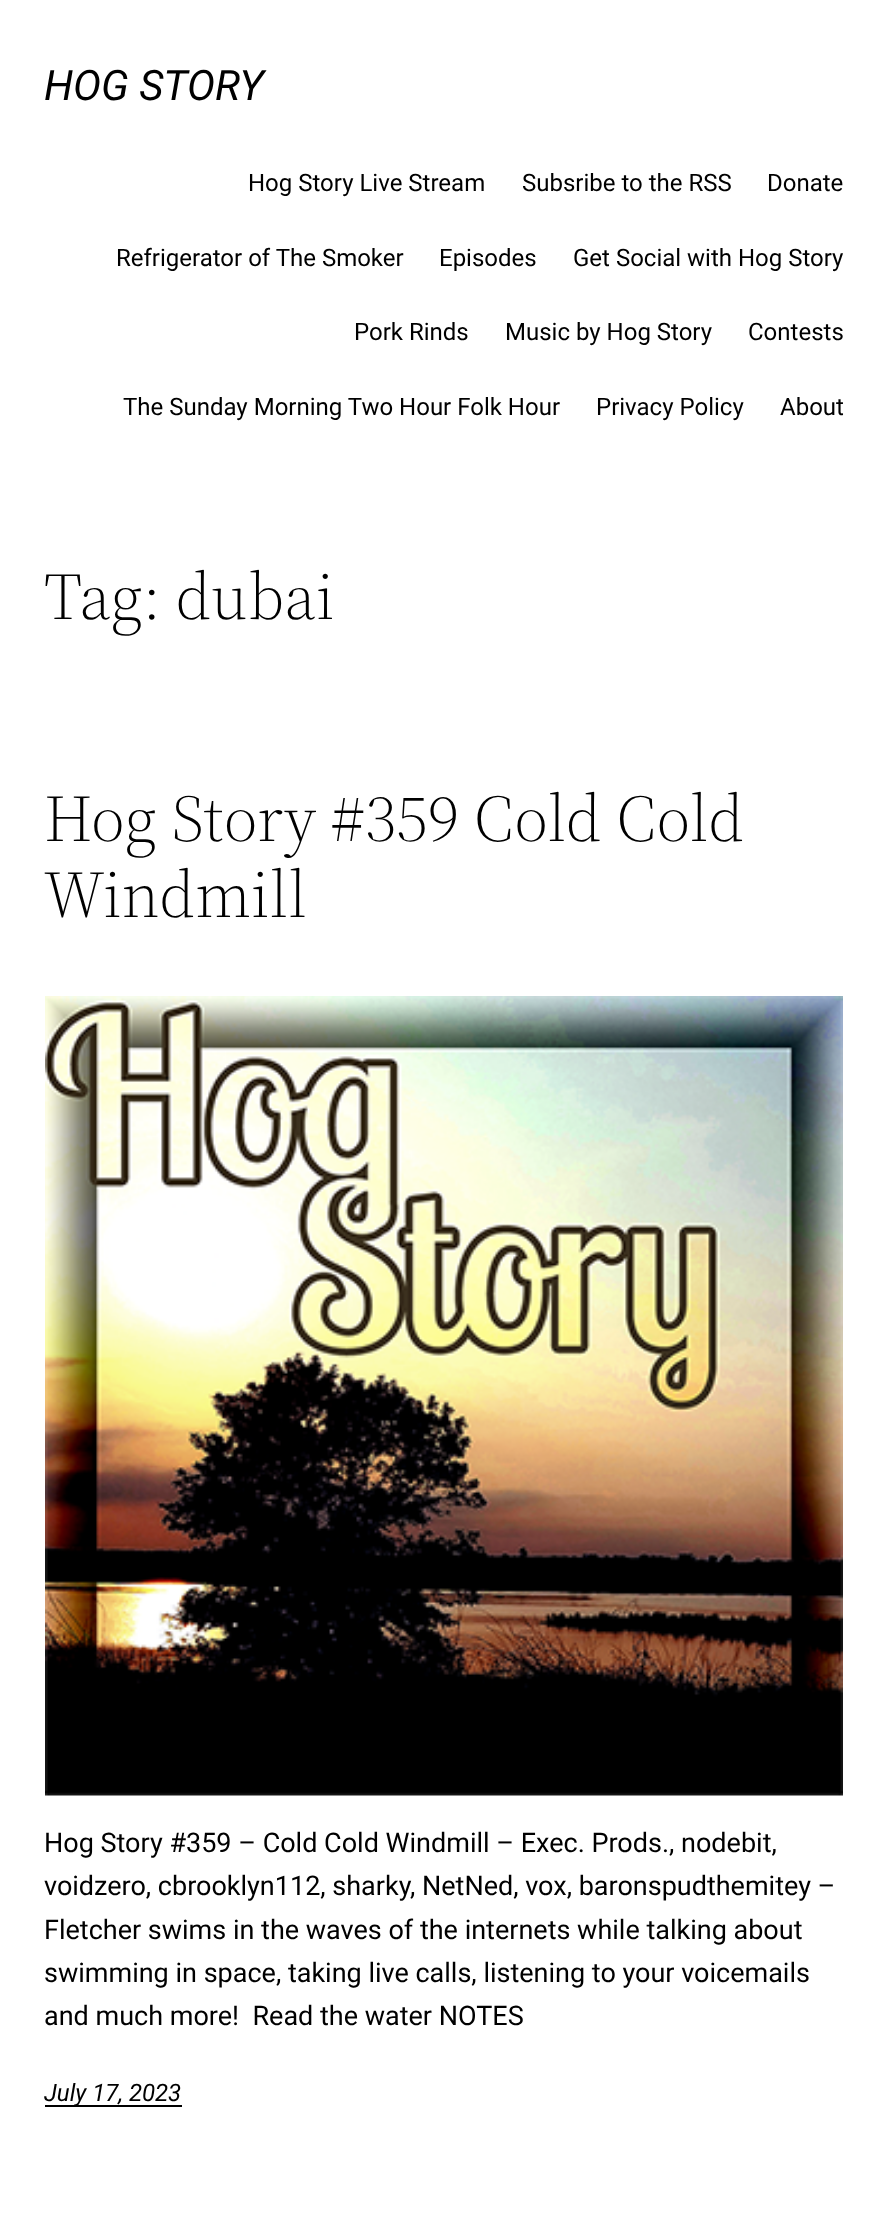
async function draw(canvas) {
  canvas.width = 887
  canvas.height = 2214
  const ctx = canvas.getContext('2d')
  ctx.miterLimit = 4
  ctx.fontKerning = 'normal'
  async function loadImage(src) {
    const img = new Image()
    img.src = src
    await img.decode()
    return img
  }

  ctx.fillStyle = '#fff'
  ctx.fillRect(0, 0, 887, 2214)
  ctx.font = 'italic 42px Roboto'
  ctx.fillStyle = '#000'
  ctx.fillText('HOG STORY', 44, 100)
  ctx.font = '24px Roboto'
  ctx.fillText('Hog Story Live Stream', 248, 191)
  ctx.fillText('Subsribe to the RSS', 522, 191)
  ctx.fillText('Donate', 767, 191)
  ctx.fillText('Refrigerator of The Smoker', 116, 266)
  ctx.fillText('Episodes', 439, 266)
  ctx.fillText('Get Social with Hog Story', 573, 266)
  ctx.fillText('Pork Rinds', 354, 340)
  ctx.fillText('Music by Hog Story', 505, 340)
  ctx.fillText('Contests', 748, 340)
  ctx.fillText('The Sunday Morning Two Hour Folk Hour', 123, 415)
  ctx.fillText('Privacy Policy', 596, 415)
  ctx.fillText('About', 780, 415)
  ctx.font = '300 66px "Source Serif 4"'
  ctx.fillText('Tag: dubai', 44, 619)
  ctx.fillText('Hog Story #359 Cold Cold', 44, 841)
  ctx.fillText('Windmill', 44, 917)
  ctx.drawImage(await loadImage('image0.png'), 45, 996, 798, 800)
  ctx.font = '27px Roboto'
  ctx.fillText('Hog Story #359 – Cold Cold Windmill – Exec. Prods., nodebit,', 44, 1852)
  ctx.fillText('voidzero, cbrooklyn112, sharky, NetNed, vox, baronspudthemitey –', 44, 1895)
  ctx.fillText('Fletcher swims in the waves of the internets while talking about', 44, 1939)
  ctx.fillText('swimming in space, taking live calls, listening to your voicemails', 44, 1982)
  ctx.fillText('and much more!  Read the water NOTES', 44, 2025)
  ctx.fillRect(45, 2105, 137, 2)
  ctx.font = 'italic 24px Roboto'
  ctx.fillText('July 17, 2023', 44, 2101)
}

draw(document.querySelector('canvas'))
